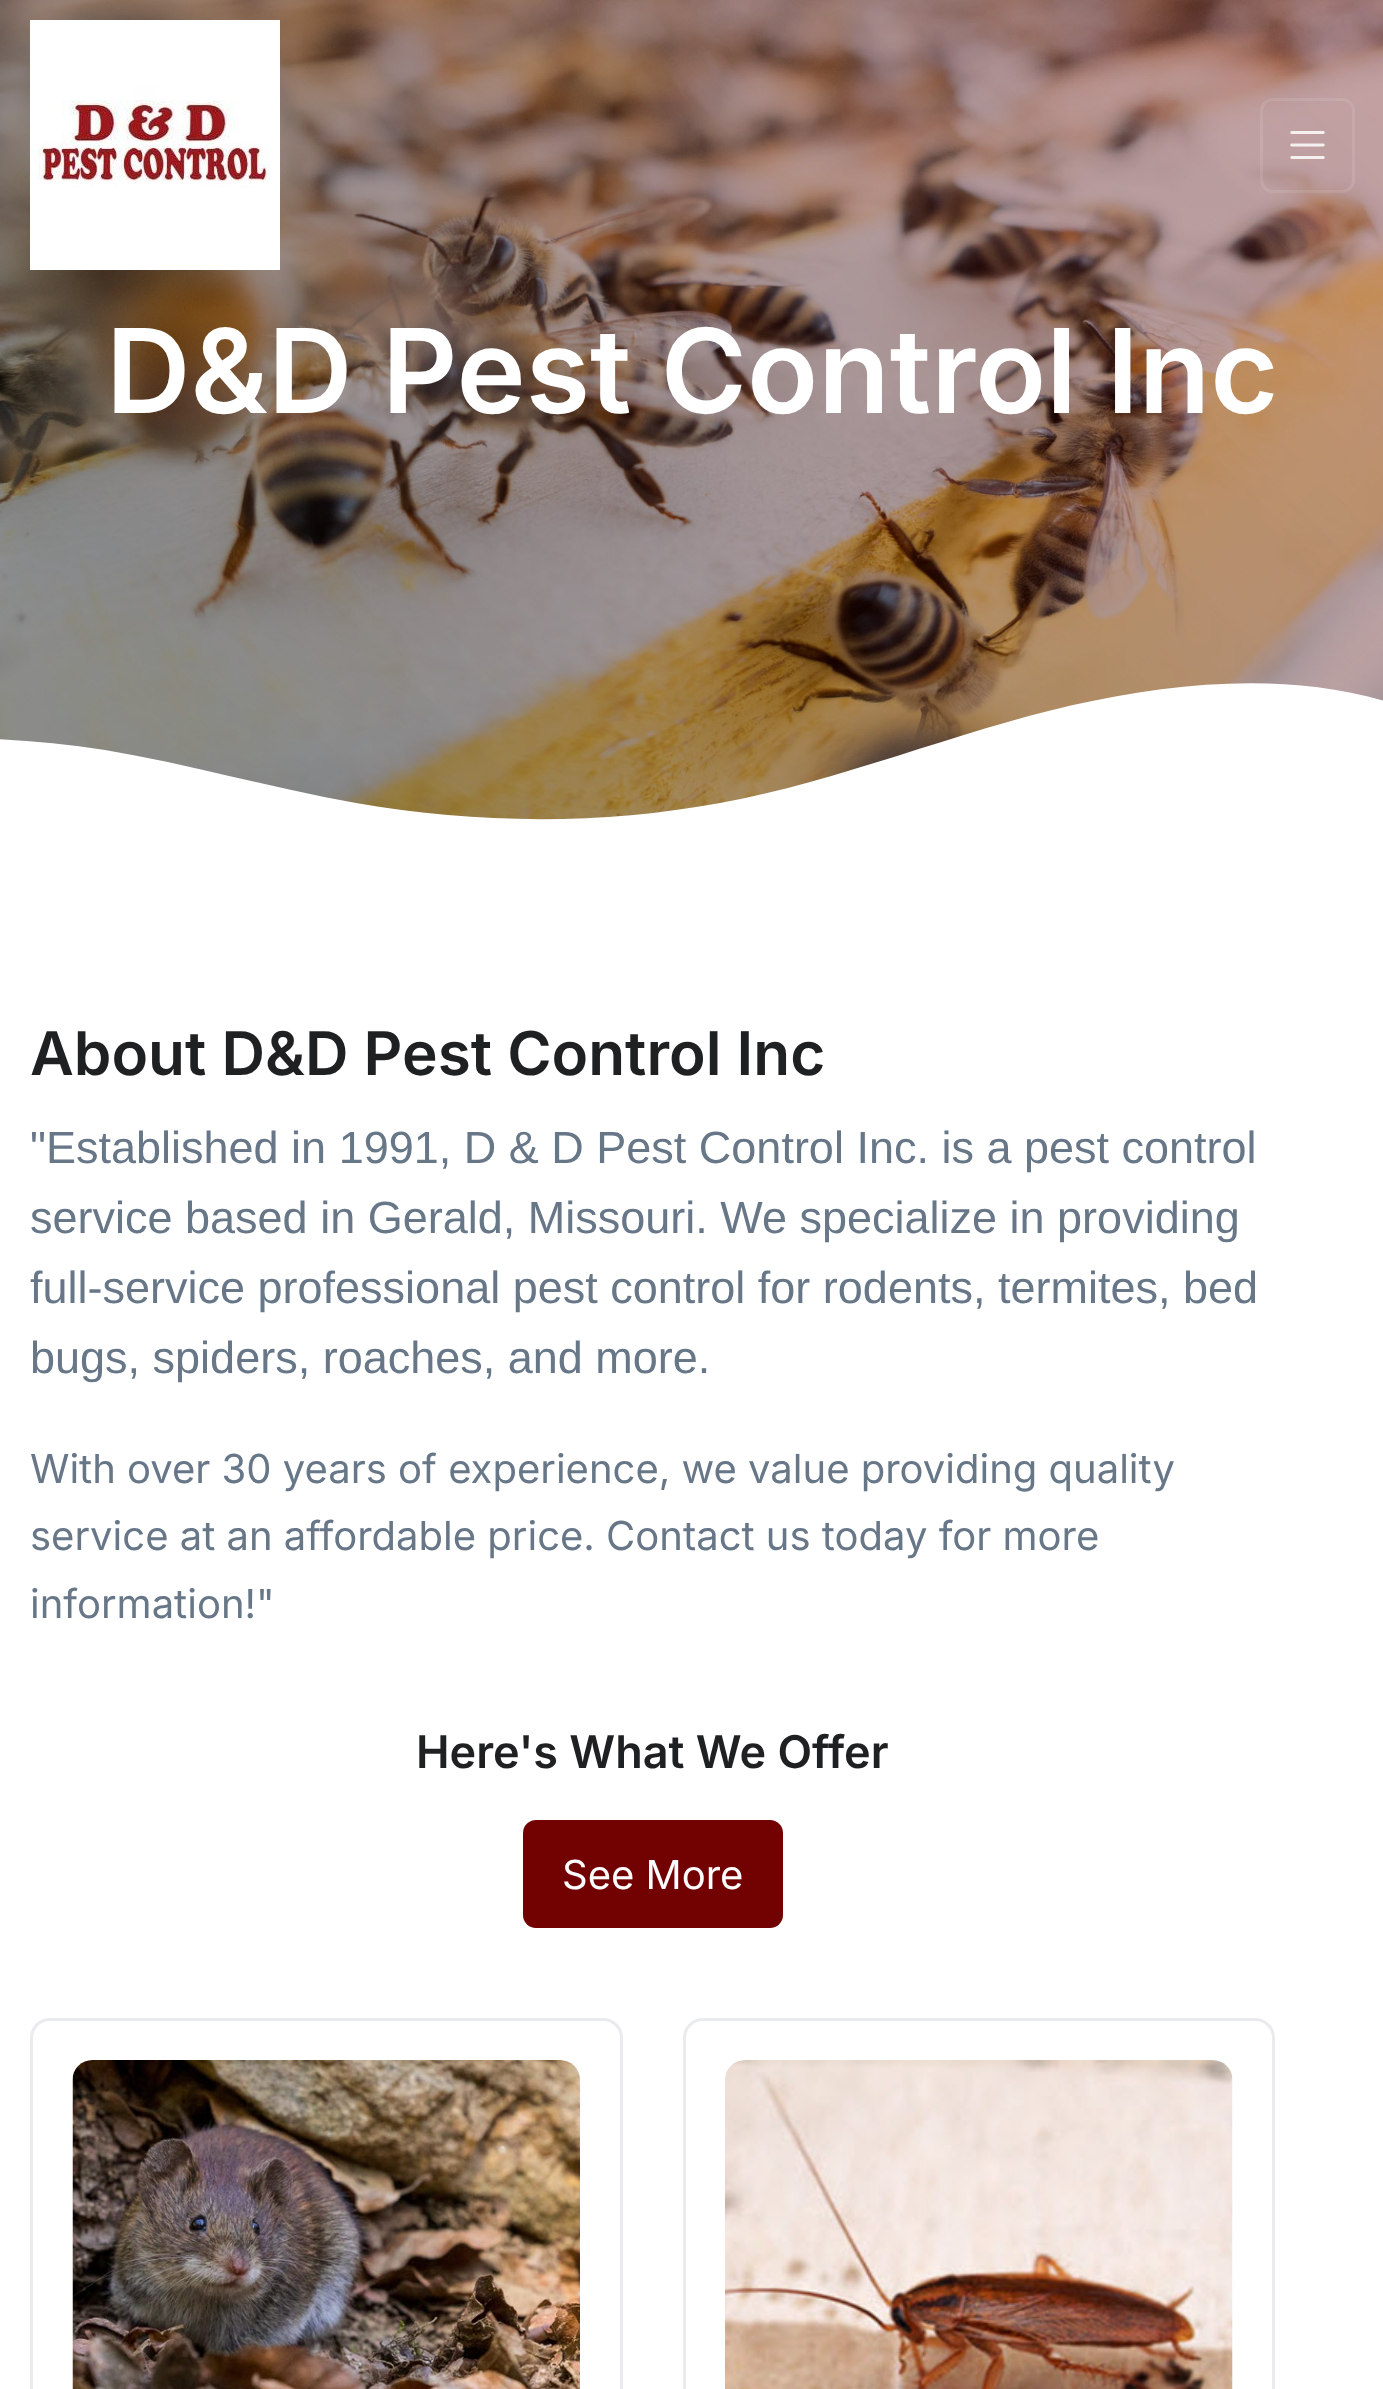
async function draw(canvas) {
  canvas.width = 1383
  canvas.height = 2389
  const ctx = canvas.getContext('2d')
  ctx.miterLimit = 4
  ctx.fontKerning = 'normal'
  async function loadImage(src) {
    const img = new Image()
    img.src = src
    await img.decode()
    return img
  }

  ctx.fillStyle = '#fff'
  ctx.fillRect(0, 0, 1383, 2389)
  ctx.drawImage(await loadImage('image2.png'), 0, 0, 1383, 820)
  ctx.drawImage(await loadImage('image0.png'), 30, 20, 250, 250)
  ctx.beginPath()
  ctx.roundRect(1261.5, 99.5, 92, 92, 11.5)
  ctx.strokeStyle = '#ffffff1a'
  ctx.lineWidth = 3
  ctx.stroke()
  ctx.drawImage(await loadImage('image1.png'), 1290, 131, 35, 28)
  ctx.font = '600 117px Inter'
  ctx.fillText('D&D Pest Control Inc', 106, 413)
  ctx.save()
  ctx.beginPath()
  ctx.rect(0, 670, 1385, 150)
  ctx.clip()
  ctx.beginPath()
  ctx.moveTo(105, 750)
  ctx.bezierCurveTo(189, 764, 271, 788, 356, 803)
  ctx.bezierCurveTo(476, 824, 601, 825, 720, 803)
  ctx.bezierCurveTo(837, 782, 958, 731, 1073, 705)
  ctx.bezierCurveTo(1175, 682, 1286, 672, 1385, 701)
  ctx.lineTo(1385, 821)
  ctx.lineTo(-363, 821)
  ctx.lineTo(-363, 787)
  ctx.bezierCurveTo(-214, 738, -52, 726, 105, 750)
  ctx.closePath()
  ctx.fill()
  ctx.restore()
  ctx.font = '600 60.25px Inter'
  ctx.fillStyle = '#1e2022'
  ctx.fillText('About D&D Pest Control Inc', 30, 1075)
  ctx.font = '45px Liberation Sans'
  ctx.fillStyle = '#677788'
  ctx.fillText('"Established in 1991, D & D Pest Control Inc. is a pest control', 30, 1163)
  ctx.fillText('service based in Gerald, Missouri. We specialize in providing', 30, 1233)
  ctx.fillText('full-service professional pest control for rodents, termites, bed', 30, 1303)
  ctx.fillText('bugs, spiders, roaches, and more.', 30, 1373)
  ctx.font = '40px Inter'
  ctx.fillText('With over 30 years of experience, we value providing quality', 30, 1483)
  ctx.fillText('service at an affordable price. Contact us today for more', 30, 1550)
  ctx.fillText('information!"', 30, 1618)
  ctx.font = '600 45px Inter'
  ctx.fillStyle = '#1e2022'
  ctx.fillText('Here\'s What We Offer', 416, 1768)
  ctx.fillStyle = '#720202'
  ctx.beginPath()
  ctx.roundRect(523, 1820, 260, 108, 13)
  ctx.fill()
  ctx.font = '40px Inter'
  ctx.fillStyle = '#fff'
  ctx.fillText('See More', 562, 1889)
  ctx.beginPath()
  ctx.roundRect(31.5, 2019.5, 590, 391, 18.5)
  ctx.strokeStyle = '#e9ebef'
  ctx.stroke()
  ctx.drawImage(await loadImage('image3.png'), 72, 2060, 508, 329)
  ctx.beginPath()
  ctx.roundRect(684.5, 2019.5, 589, 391, 18.5)
  ctx.stroke()
  ctx.drawImage(await loadImage('image4.png'), 725, 2060, 508, 329)
}

draw(document.querySelector('canvas'))
